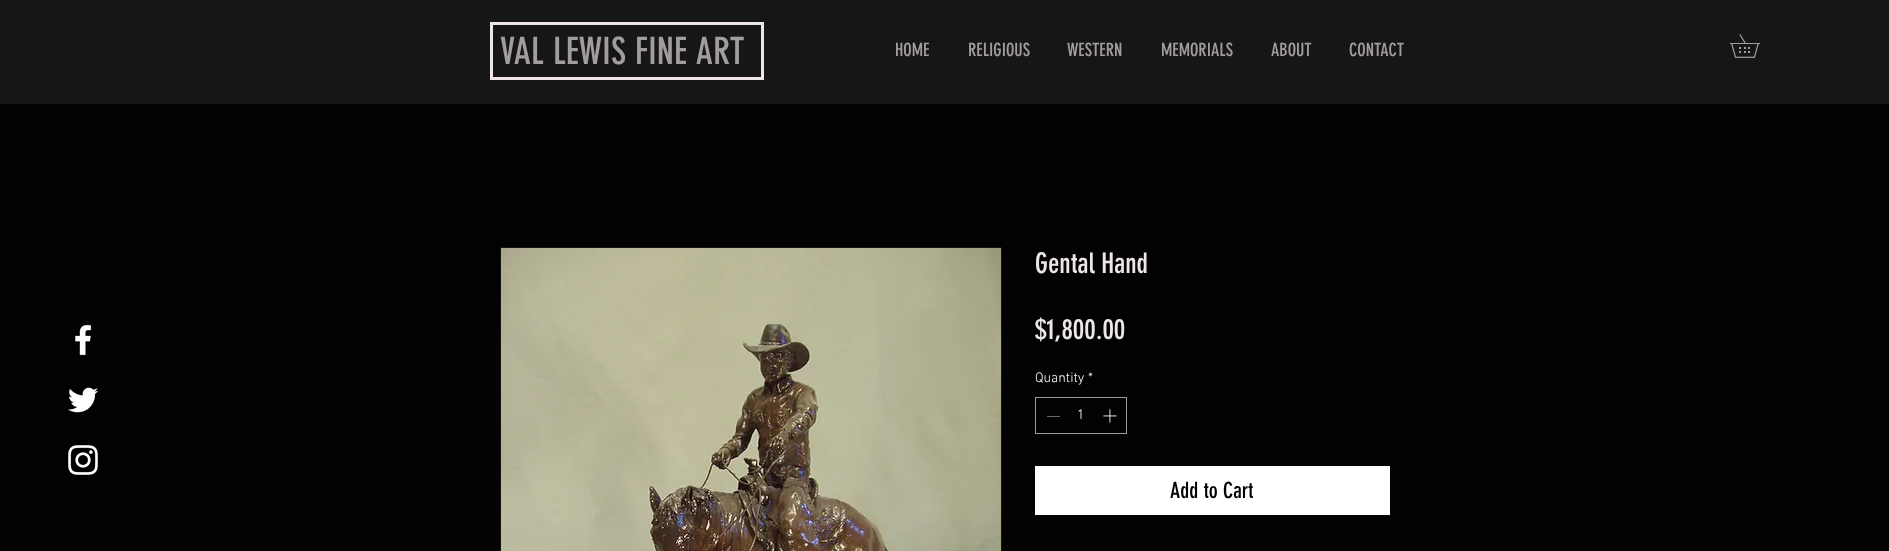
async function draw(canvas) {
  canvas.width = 1889
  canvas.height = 551
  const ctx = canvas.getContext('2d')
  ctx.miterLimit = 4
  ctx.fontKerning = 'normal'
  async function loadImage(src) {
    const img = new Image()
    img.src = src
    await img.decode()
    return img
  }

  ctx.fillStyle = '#020202'
  ctx.fillRect(0, 0, 1889, 551)
  ctx.fillStyle = '#161616'
  ctx.fillRect(0, 0, 1889, 104)
  ctx.strokeStyle = '#eee6e6'
  ctx.lineWidth = 3
  ctx.strokeRect(491.5, 23.5, 271, 55)
  ctx.font = '37px "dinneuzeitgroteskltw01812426"'
  ctx.fillStyle = '#a29c9c'
  ctx.fillText('VAL LEWIS FINE ART', 500, 64)
  ctx.font = '18px "dinneuzeitgroteskltw01812426"'
  ctx.fillText('HOME', 895, 56)
  ctx.fillText('RELIGIOUS', 968, 56)
  ctx.fillText('WESTERN', 1067, 56)
  ctx.fillText('MEMORIALS', 1161, 56)
  ctx.fillText('ABOUT', 1271, 56)
  ctx.fillText('CONTACT', 1349, 56)
  ctx.drawImage(await loadImage('image0.png'), 1730, 34, 30, 24)
  ctx.drawImage(await loadImage('image1.png'), 75, 324, 17, 32)
  ctx.drawImage(await loadImage('image2.png'), 68, 387, 31, 26)
  ctx.drawImage(await loadImage('image3.png'), 68, 445, 30, 30)
  ctx.strokeStyle = '#141414'
  ctx.lineWidth = 1
  ctx.strokeRect(500.5, 247.5, 501, 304)
  ctx.drawImage(await loadImage('image4.png'), 501, 248, 500, 303)
  ctx.font = '28px "dinneuzeitgroteskltw01812426"'
  ctx.fillStyle = '#eee6e6'
  ctx.fillText('Gental Hand', 1035, 273)
  ctx.fillText('$1,800.00', 1035, 339)
  ctx.font = '300 14px "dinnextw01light"'
  ctx.fillStyle = '#fff'
  ctx.fillText('Quantity', 1035, 382)
  ctx.fillText('*', 1088, 382)
  ctx.strokeStyle = '#9a9a9a'
  ctx.strokeRect(1035.5, 397.5, 91, 36)
  ctx.fillStyle = '#656565'
  ctx.fillRect(1047, 416, 13, 1)
  ctx.fillStyle = '#fff'
  ctx.fillText('1', 1077, 419)
  ctx.drawImage(await loadImage('image5.png'), 1103, 409, 14, 14)
  ctx.fillRect(1035, 466, 355, 49)
  ctx.font = '22px "dinneuzeitgroteskltw01812426"'
  ctx.fillStyle = '#020202'
  ctx.fillText('Add to Cart', 1170, 498)
}

draw(document.querySelector('canvas'))
